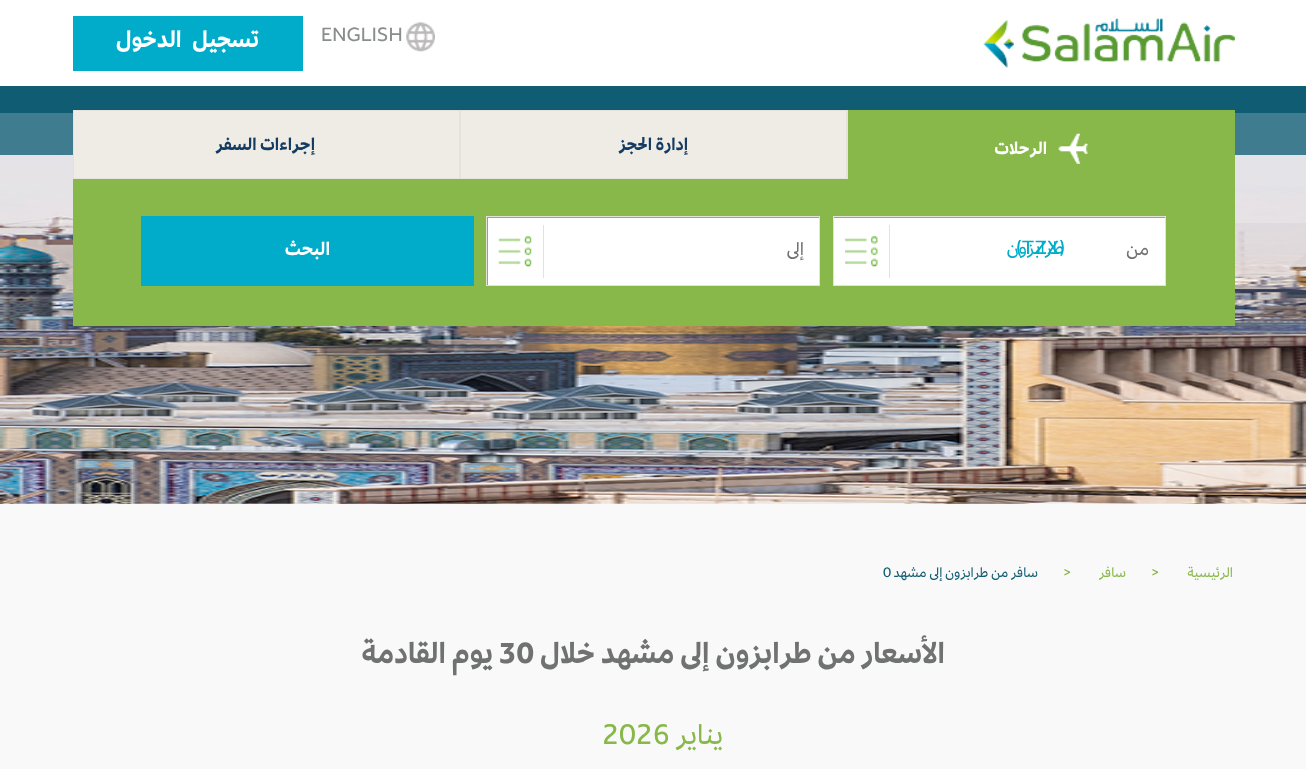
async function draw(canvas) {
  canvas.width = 1306
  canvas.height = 769
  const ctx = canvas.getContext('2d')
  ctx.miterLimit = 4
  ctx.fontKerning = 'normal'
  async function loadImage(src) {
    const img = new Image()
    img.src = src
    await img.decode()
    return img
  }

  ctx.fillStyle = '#fff'
  ctx.fillRect(0, 0, 1306, 769)
  ctx.drawImage(await loadImage('image0.png'), 983, 18, 252, 50)
  ctx.drawImage(await loadImage('image1.png'), 406, 22, 29, 30)
  ctx.font = '20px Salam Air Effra'
  ctx.fillStyle = '#8a8d8e'
  ctx.fillText('ENGLISH', 321, 41)
  ctx.fillStyle = '#00acca'
  ctx.fillRect(73, 16, 230, 55)
  ctx.wordSpacing = '6px'
  ctx.direction = 'rtl'
  ctx.font = 'bold 25px Salam Air Effra'
  ctx.fillStyle = '#fff'
  ctx.fillText('تسجيل الدخول', 259, 47)
  ctx.fillStyle = '#105c73'
  ctx.fillRect(0, 86, 1306, 69)
  ctx.fillStyle = '#f9f9f9'
  ctx.fillRect(0, 503, 1306, 266)
  ctx.drawImage(await loadImage('image5.png'), 0, 155, 1306, 349)
  ctx.fillStyle = '#ffffff33'
  ctx.fillRect(0, 113, 1306, 110)
  ctx.fillStyle = '#87b849'
  ctx.fillRect(848, 110, 387, 69)
  ctx.drawImage(await loadImage('image2.png'), 1058, 133, 30, 31)
  ctx.wordSpacing = '0px'
  ctx.font = 'bold 18.75px Salam Air Effra'
  ctx.fillStyle = '#fff'
  ctx.fillText('الرحلات', 1047, 154)
  ctx.fillStyle = '#e5e2da'
  ctx.fillRect(73, 110, 775, 69)
  ctx.fillStyle = '#efece5'
  ctx.fillRect(461, 111, 385, 67)
  ctx.fillStyle = '#143b61'
  ctx.fillText('إدارة الحجز', 688, 150)
  ctx.fillStyle = '#efece5'
  ctx.fillRect(74, 111, 385, 67)
  ctx.fillStyle = '#143b61'
  ctx.fillText('إجراءات السفر', 315, 150)
  ctx.fillStyle = '#87b849'
  ctx.fillRect(73, 179, 1162, 147)
  ctx.fillStyle = '#fff'
  ctx.fillRect(834, 218, 331, 67)
  ctx.strokeStyle = '#e5e2da'
  ctx.strokeRect(833.5, 216.5, 332, 69)
  ctx.font = '20px Salam Air Effra'
  ctx.fillStyle = '#707271'
  ctx.fillText('من', 1149, 255)
  ctx.drawImage(await loadImage('image3.png'), 845, 236, 33, 31)
  ctx.fillStyle = '#e5e2da'
  ctx.fillRect(889, 225, 1, 53)
  ctx.fillStyle = '#00acca'
  ctx.fillText('طرابزون', 1064, 254)
  ctx.direction = 'ltr'
  ctx.fillText('(TZX)', 1016, 254)
  ctx.fillStyle = '#fff'
  ctx.fillRect(488, 218, 331, 67)
  ctx.strokeRect(486.5, 216.5, 333, 69)
  ctx.direction = 'rtl'
  ctx.fillStyle = '#707271'
  ctx.fillText('إلى', 804, 255)
  ctx.drawImage(await loadImage('image4.png'), 498, 236, 34, 31)
  ctx.fillStyle = '#e5e2da'
  ctx.fillRect(543, 225, 1, 53)
  ctx.fillStyle = '#00acca'
  ctx.fillRect(141, 216, 333, 70)
  ctx.font = 'bold 20px Salam Air Effra'
  ctx.fillStyle = '#fff'
  ctx.fillText('البحث', 330, 255)
  ctx.font = '15px Salam Air Effra'
  ctx.fillStyle = '#87b849'
  ctx.fillText('الرئيسية', 1233, 577)
  ctx.direction = 'ltr'
  ctx.fillStyle = '#81b43f'
  ctx.fillText('>', 1151, 577)
  ctx.direction = 'rtl'
  ctx.fillStyle = '#87b849'
  ctx.fillText('سافر', 1126, 577)
  ctx.direction = 'ltr'
  ctx.fillStyle = '#81b43f'
  ctx.fillText('>', 1063, 577)
  ctx.direction = 'rtl'
  ctx.fillStyle = '#105c73'
  ctx.fillText('سافر من طرابزون إلى مشهد', 1038, 577)
  ctx.direction = 'ltr'
  ctx.fillText('0', 883, 577)
  ctx.direction = 'rtl'
  ctx.font = 'bold 32px Salam Air Effra'
  ctx.fillStyle = '#707271'
  ctx.fillText('الأسعار من طرابزون إلى مشهد خلال', 945, 663)
  ctx.direction = 'ltr'
  ctx.fillText('30', 499, 663)
  ctx.direction = 'rtl'
  ctx.fillText('يوم القادمة', 493, 663)
  ctx.font = '31px Salam Air Effra'
  ctx.fillStyle = '#87b849'
  ctx.fillText('يناير', 723, 744)
  ctx.direction = 'ltr'
  ctx.fillText('2026', 602, 744)
}

draw(document.querySelector('canvas'))
